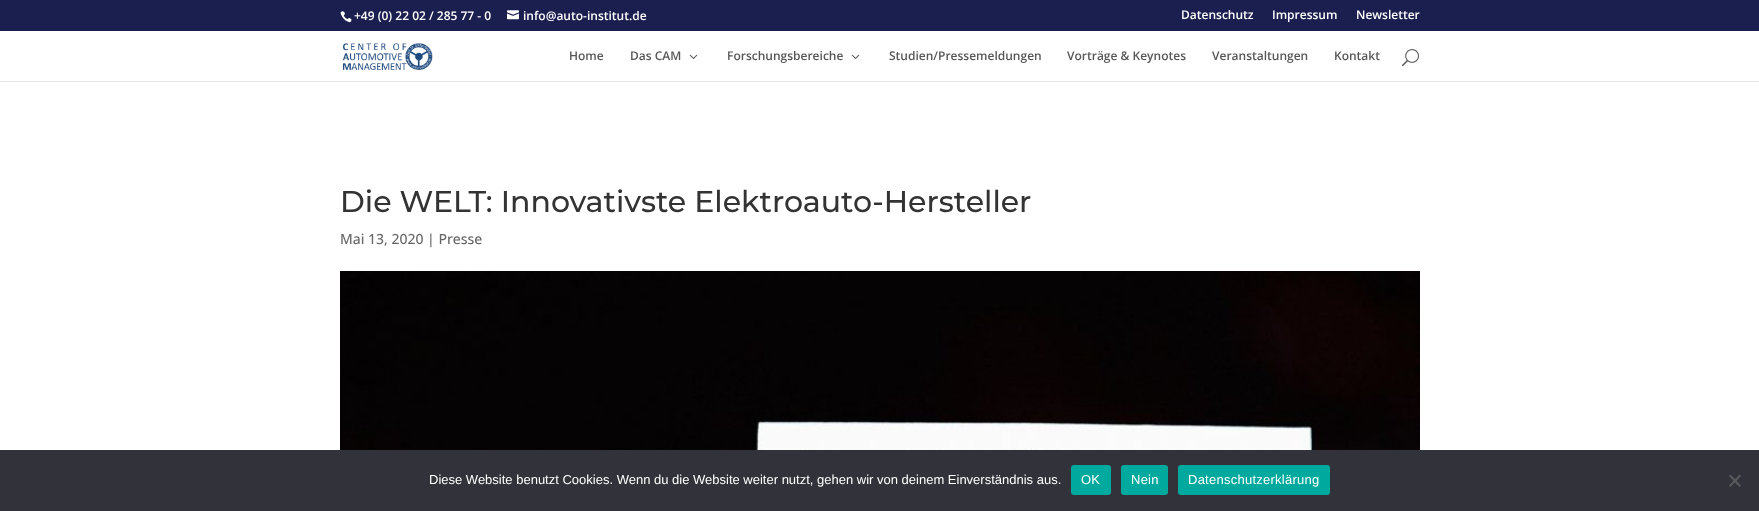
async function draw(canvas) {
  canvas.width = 1759
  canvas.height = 511
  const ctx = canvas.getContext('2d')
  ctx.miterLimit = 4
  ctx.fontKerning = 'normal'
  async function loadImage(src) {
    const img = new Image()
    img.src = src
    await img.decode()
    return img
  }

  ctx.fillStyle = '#fff'
  ctx.fillRect(0, 0, 1759, 511)
  ctx.fillStyle = '#1b1f50'
  ctx.fillRect(0, 0, 1759, 31)
  ctx.drawImage(await loadImage('image0.png'), 340, 11, 12, 12)
  ctx.font = '600 12px Open Sans'
  ctx.fillStyle = '#fff'
  ctx.fillText('+49 (0) 22 02 / 285 77 - 0', 354, 20)
  ctx.drawImage(await loadImage('image1.png'), 507, 10, 12, 10)
  ctx.fillText('info@auto-institut.de', 523, 20)
  ctx.fillText('Datenschutz', 1181, 19)
  ctx.fillText('Impressum', 1272, 19)
  ctx.fillText('Newsletter', 1356, 19)
  ctx.fillStyle = '#e6e6e6'
  ctx.fillRect(0, 81, 1759, 1)
  ctx.drawImage(await loadImage('image2.png'), 343, 43, 90, 27)
  ctx.fillStyle = '#575757'
  ctx.fillText('Home', 569, 60)
  ctx.fillText('Das CAM', 630, 60)
  ctx.drawImage(await loadImage('image3.png'), 689, 54, 9, 5)
  ctx.fillText('Forschungsbereiche', 727, 60)
  ctx.drawImage(await loadImage('image3.png'), 851, 54, 9, 5)
  ctx.fillText('Studien/Pressemeldungen', 889, 60)
  ctx.fillText('Vorträge & Keynotes', 1067, 60)
  ctx.fillText('Veranstaltungen', 1212, 60)
  ctx.fillText('Kontakt', 1334, 60)
  ctx.drawImage(await loadImage('image4.png'), 1402, 49, 17, 18)
  ctx.font = '500 30px Montserrat'
  ctx.fillStyle = '#333'
  ctx.fillText('Die WELT: Innovativste Elektroauto-Hersteller', 340, 212)
  ctx.font = '500 14px Open Sans'
  ctx.fillStyle = '#666'
  ctx.fillText('Mai 13, 2020 | Presse', 340, 244)
  ctx.drawImage(await loadImage('image5.png'), 340, 271, 1080, 179)
  ctx.fillStyle = '#32323a'
  ctx.fillRect(0, 450, 1759, 61)
  ctx.font = '13px Liberation Sans'
  ctx.fillStyle = '#fff'
  ctx.fillText('Diese Website benutzt Cookies. Wenn du die Website weiter nutzt, gehen wir von deinem Einverständnis aus.', 429, 484)
  ctx.fillStyle = '#00a99d'
  ctx.beginPath()
  ctx.roundRect(1071, 465, 40, 30, 3)
  ctx.fill()
  ctx.letterSpacing = '0.25px'
  ctx.fillStyle = '#fff'
  ctx.fillText('OK', 1081, 484)
  ctx.fillStyle = '#00a99d'
  ctx.beginPath()
  ctx.roundRect(1121, 465, 47, 30, 3)
  ctx.fill()
  ctx.fillStyle = '#fff'
  ctx.fillText('Nein', 1131, 484)
  ctx.fillStyle = '#00a99d'
  ctx.beginPath()
  ctx.roundRect(1178, 465, 152, 30, 3)
  ctx.fill()
  ctx.fillStyle = '#fff'
  ctx.fillText('Datenschutzerklärung', 1188, 484)
  ctx.fillStyle = '#59595d'
  ctx.beginPath()
  ctx.moveTo(1739.5, 474.5)
  ctx.lineTo(1741, 476)
  ctx.lineTo(1730.5, 487)
  ctx.lineTo(1729, 485.5)
  ctx.closePath()
  ctx.fill()
  ctx.beginPath()
  ctx.moveTo(1729, 476)
  ctx.lineTo(1730.5, 474.5)
  ctx.lineTo(1741, 485.5)
  ctx.lineTo(1739.5, 487)
  ctx.closePath()
  ctx.fill()
}

draw(document.querySelector('canvas'))
